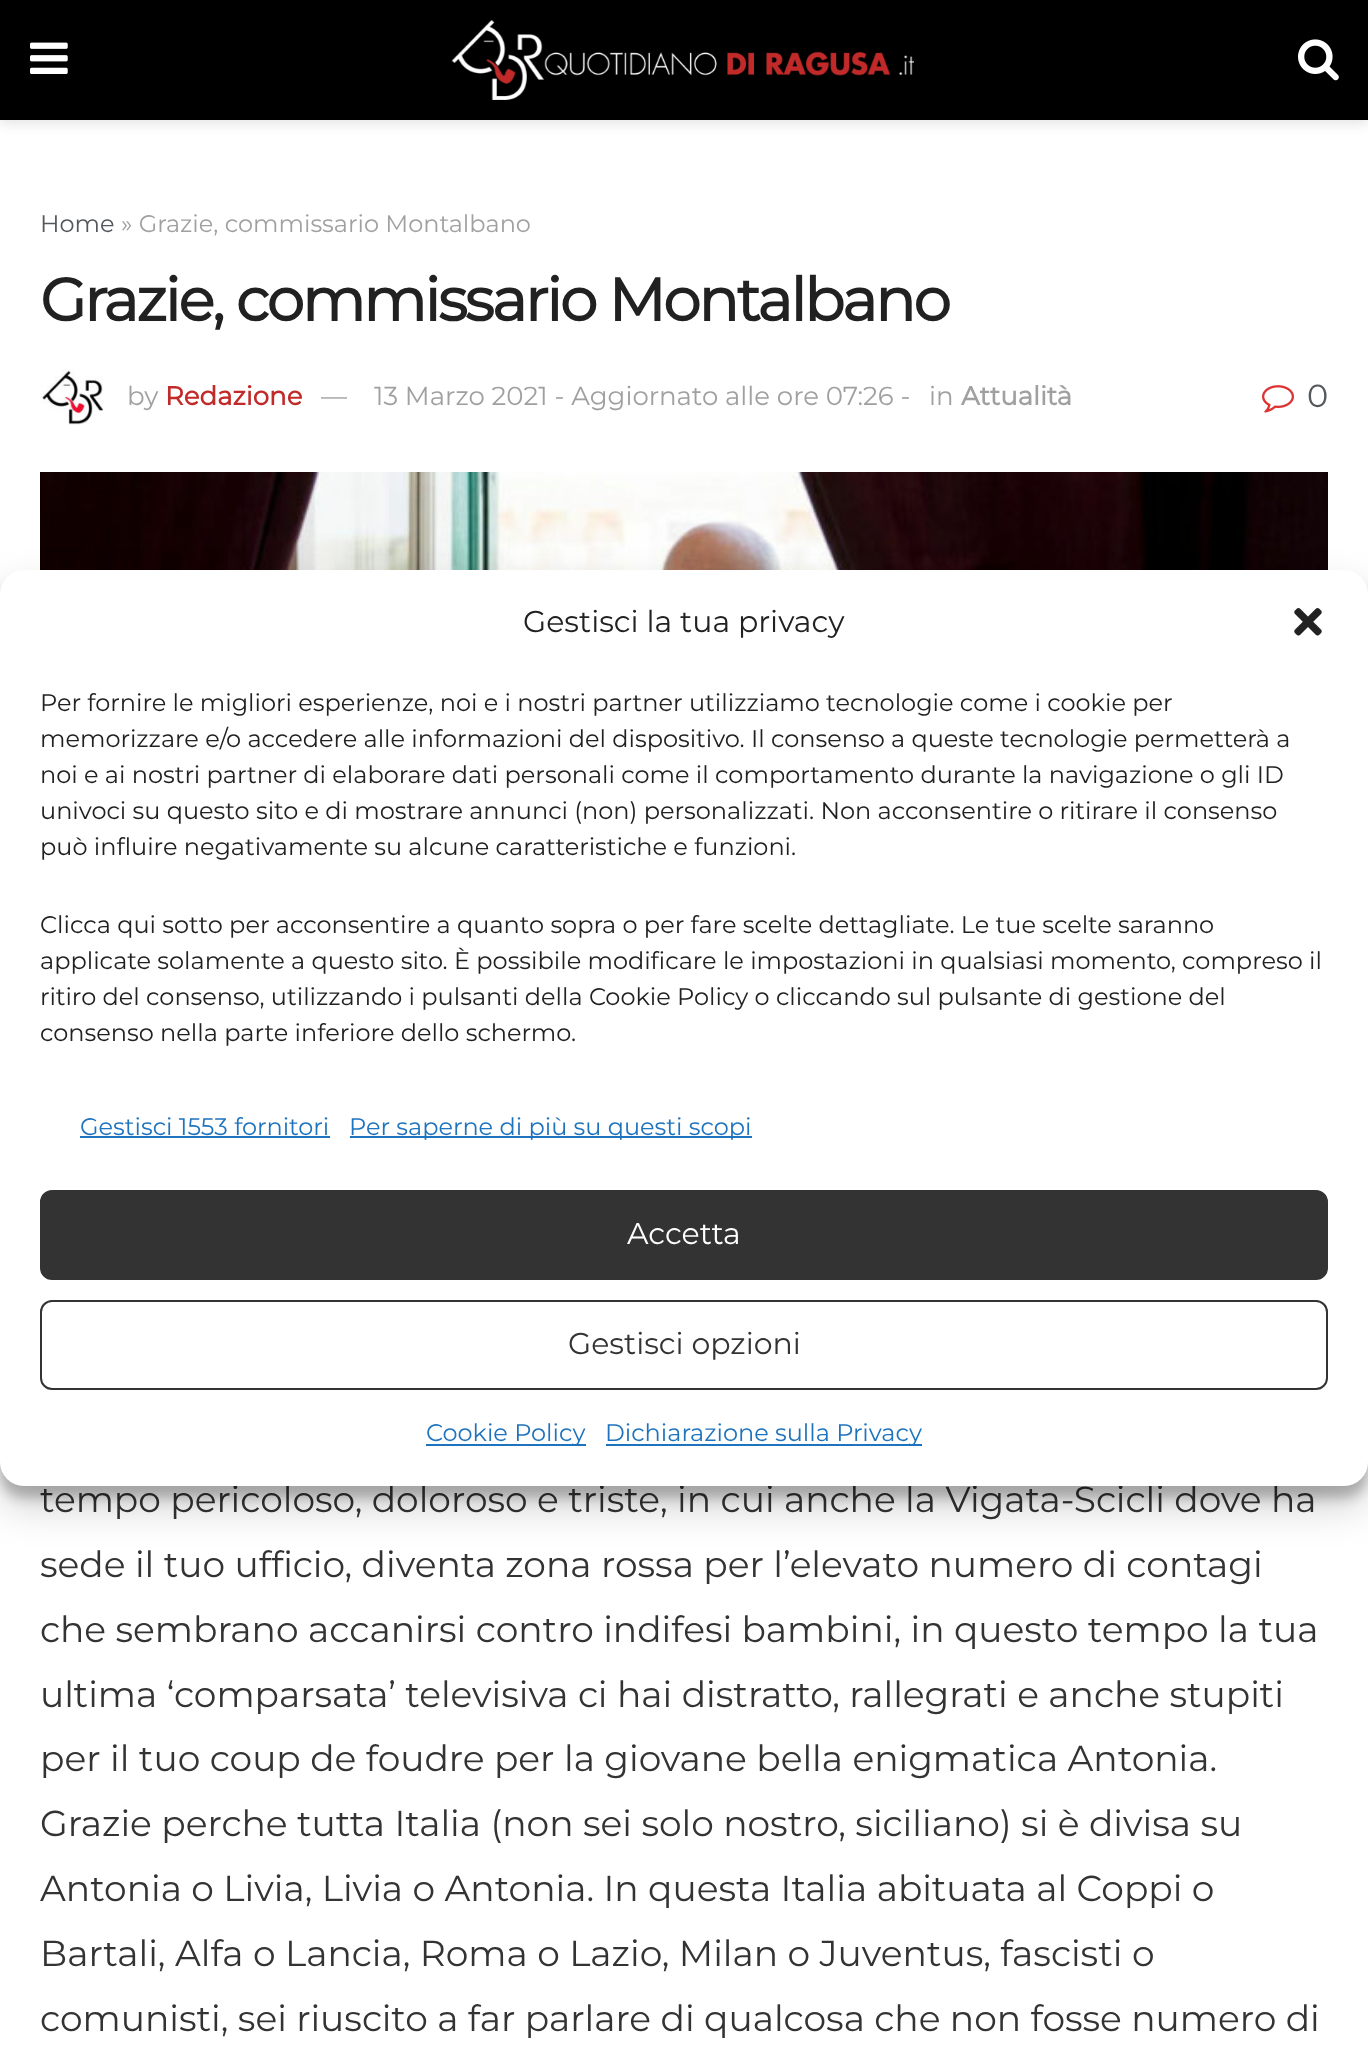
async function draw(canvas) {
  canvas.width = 1368
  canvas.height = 2055
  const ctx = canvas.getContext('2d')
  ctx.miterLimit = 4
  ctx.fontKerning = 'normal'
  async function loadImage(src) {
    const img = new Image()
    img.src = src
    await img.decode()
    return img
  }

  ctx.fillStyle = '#fff'
  ctx.fillRect(0, 0, 1368, 2055)
  ctx.fillStyle = '#0000001a'
  ctx.filter = 'blur(6px)'
  ctx.beginPath()
  ctx.rect(0, 4, 1368, 120)
  ctx.fill()
  ctx.filter = 'none'
  ctx.fillStyle = '#000'
  ctx.fillRect(0, 0, 1368, 120)
  ctx.drawImage(await loadImage('image0.png'), 30, 42, 38, 32)
  ctx.drawImage(await loadImage('image1.png'), 451, 20, 463, 80)
  ctx.drawImage(await loadImage('image2.png'), 1298, 39, 41, 42)
  ctx.font = '100 24px Montserrat'
  ctx.fillStyle = '#53585c'
  ctx.fillText('Home', 40, 232)
  ctx.fillStyle = '#a0a0a0'
  ctx.fillText('» Grazie, commissario Montalbano', 121, 232)
  ctx.letterSpacing = '-2.4px'
  ctx.font = 'bold 60px Montserrat'
  ctx.fillStyle = '#212121'
  ctx.fillText('Grazie, commissario Montalbano', 40, 321)
  ctx.drawImage(await loadImage('image3.png'), 40, 369, 64, 56)
  ctx.letterSpacing = '0px'
  ctx.font = '100 26px Montserrat'
  ctx.fillStyle = '#a0a0a0'
  ctx.fillText('by', 127, 405)
  ctx.font = 'bold 26px Montserrat'
  ctx.fillStyle = '#c12a29'
  ctx.fillText('Redazione', 165, 405)
  ctx.font = '100 26px Montserrat'
  ctx.fillStyle = '#a0a0a0'
  ctx.fillText('—', 321, 405)
  ctx.fillText('13 Marzo 2021 - Aggiornato alle ore 07:26 -', 374, 405)
  ctx.fillText('in', 929, 405)
  ctx.font = 'bold 26px Montserrat'
  ctx.fillText('Attualità', 961, 405)
  ctx.drawImage(await loadImage('image4.png'), 1262, 385, 32, 28)
  ctx.font = '100 32px Montserrat'
  ctx.fillStyle = '#53585c'
  ctx.fillText('0', 1307, 407)
  ctx.drawImage(await loadImage('image5.png'), 40, 472, 1288, 98)
  ctx.font = '100 36px Montserrat'
  ctx.fillStyle = '#333'
  ctx.fillText('tempo pericoloso, doloroso e triste, in cui anche la Vigata-Scicli dove ha', 40, 1512)
  ctx.fillText('sede il tuo ufficio, diventa zona rossa per l’elevato numero di contagi', 40, 1577)
  ctx.fillText('che sembrano accanirsi contro indifesi bambini, in questo tempo la tua', 40, 1642)
  ctx.fillText('ultima ‘comparsata’ televisiva ci hai distratto, rallegrati e anche stupiti', 40, 1707)
  ctx.fillText('per il tuo coup de foudre per la giovane bella enigmatica Antonia.', 40, 1771)
  ctx.fillText('Grazie perche tutta Italia (non sei solo nostro, siciliano) si è divisa su', 40, 1836)
  ctx.fillText('Antonia o Livia, Livia o Antonia. In questa Italia abituata al Coppi o', 40, 1901)
  ctx.fillText('Bartali, Alfa o Lancia, Roma o Lazio, Milan o Juventus, fascisti o', 40, 1966)
  ctx.fillText('comunisti, sei riuscito a far parlare di qualcosa che non fosse numero di', 40, 2031)
  ctx.fillStyle = '#0000003b'
  ctx.filter = 'blur(6px)'
  ctx.beginPath()
  ctx.roundRect(0, 582, 1368, 916, 24)
  ctx.fill()
  ctx.filter = 'none'
  ctx.fillStyle = '#00000030'
  ctx.filter = 'blur(20px)'
  ctx.beginPath()
  ctx.roundRect(0, 590, 1368, 916, 24)
  ctx.fill()
  ctx.filter = 'none'
  ctx.fillStyle = '#fff'
  ctx.beginPath()
  ctx.roundRect(0, 570, 1368, 916, 24)
  ctx.fill()
  ctx.font = '100 30px Montserrat'
  ctx.fillStyle = '#212121'
  ctx.fillText('Gestisci la tua privacy', 523, 632)
  ctx.drawImage(await loadImage('image6.png'), 1294, 608, 28, 28)
  ctx.font = '100 24px Montserrat'
  ctx.fillText('Per fornire le migliori esperienze, noi e i nostri partner utilizziamo tecnologie come i cookie per', 40, 711)
  ctx.fillText('memorizzare e/o accedere alle informazioni del dispositivo. Il consenso a queste tecnologie permetterà a', 40, 747)
  ctx.fillText('noi e ai nostri partner di elaborare dati personali come il comportamento durante la navigazione o gli ID', 40, 783)
  ctx.fillText('univoci su questo sito e di mostrare annunci (non) personalizzati. Non acconsentire o ritirare il consenso', 40, 819)
  ctx.fillText('può influire negativamente su alcune caratteristiche e funzioni.', 40, 855)
  ctx.fillText('Clicca qui sotto per acconsentire a quanto sopra o per fare scelte dettagliate. Le tue scelte saranno', 40, 933)
  ctx.fillText('applicate solamente a questo sito. È possibile modificare le impostazioni in qualsiasi momento, compreso il', 40, 969)
  ctx.fillText('ritiro del consenso, utilizzando i pulsanti della Cookie Policy o cliccando sul pulsante di gestione del', 40, 1005)
  ctx.fillText('consenso nella parte inferiore dello schermo.', 40, 1041)
  ctx.fillStyle = '#1e73be'
  ctx.fillText('Gestisci 1553 fornitori', 80, 1135)
  ctx.fillRect(80, 1136, 250, 2)
  ctx.fillRect(350, 1136, 402, 2)
  ctx.fillText('Per saperne di più su questi scopi', 349, 1135)
  ctx.fillStyle = '#333'
  ctx.beginPath()
  ctx.roundRect(41, 1191, 1286, 88, 11)
  ctx.fill()
  ctx.strokeStyle = '#333'
  ctx.lineWidth = 2
  ctx.stroke()
  ctx.font = '100 30px Montserrat'
  ctx.fillStyle = '#fff'
  ctx.fillText('Accetta', 627, 1244)
  ctx.beginPath()
  ctx.roundRect(41, 1301, 1286, 88, 11)
  ctx.stroke()
  ctx.fillStyle = '#333'
  ctx.fillText('Gestisci opzioni', 568, 1354)
  ctx.fillStyle = '#1e73be'
  ctx.fillRect(426, 1444, 160, 2)
  ctx.font = '100 24px Montserrat'
  ctx.fillText('Cookie Policy', 426, 1441)
  ctx.fillRect(606, 1444, 316, 2)
  ctx.fillText('Dichiarazione sulla Privacy', 605, 1441)
}

draw(document.querySelector('canvas'))
